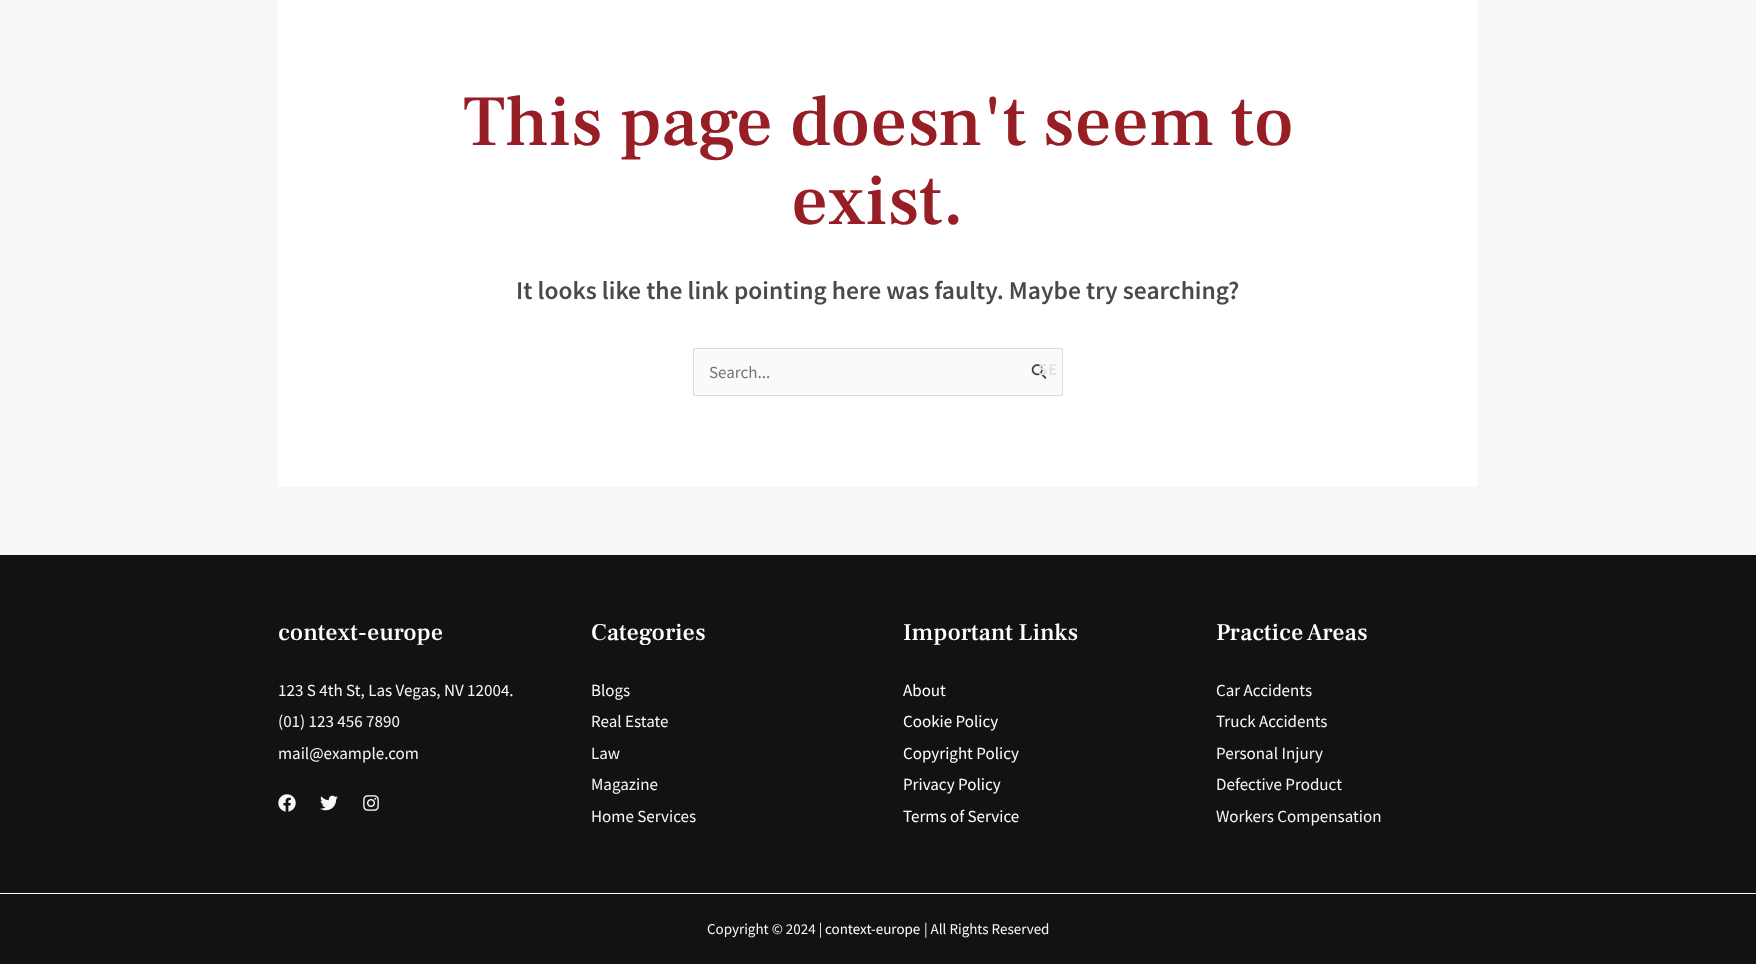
async function draw(canvas) {
  canvas.width = 1756
  canvas.height = 964
  const ctx = canvas.getContext('2d')
  ctx.miterLimit = 4
  ctx.fontKerning = 'normal'
  async function loadImage(src) {
    const img = new Image()
    img.src = src
    await img.decode()
    return img
  }

  ctx.fillStyle = '#f7f7f7'
  ctx.fillRect(0, 0, 1756, 964)
  ctx.fillStyle = '#fff'
  ctx.fillRect(278, 0, 1200, 487)
  ctx.font = '500 72px Frank Ruhl Libre'
  ctx.fillStyle = '#981e25'
  ctx.fillText('This page doesn\'t seem to', 463, 145)
  ctx.fillText('exist.', 791, 224)
  ctx.font = '600 25.5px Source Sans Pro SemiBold'
  ctx.fillStyle = '#4a4a4a'
  ctx.fillText('It looks like the link pointing here was faulty. Maybe try searching?', 516, 299)
  ctx.fillStyle = '#fafafa'
  ctx.beginPath()
  ctx.roundRect(693.5, 348.5, 369, 47, 1.5)
  ctx.fill()
  ctx.strokeStyle = '#ddd'
  ctx.stroke()
  ctx.font = '17px Source Sans Pro'
  ctx.fillStyle = '#757575'
  ctx.fillText('Search...', 709, 378)
  ctx.drawImage(await loadImage('image0.png'), 1031, 364, 15, 15)
  ctx.letterSpacing = '1px'
  ctx.font = '600 17px Source Sans Pro SemiBold'
  ctx.fillStyle = '#e2e2e2'
  ctx.fillText('SE', 1038, 375)
  ctx.fillStyle = '#121212'
  ctx.fillRect(0, 555, 1756, 409)
  ctx.letterSpacing = '0px'
  ctx.font = '500 24px Frank Ruhl Libre'
  ctx.fillStyle = '#fff'
  ctx.fillText('context-europe', 278, 640)
  ctx.font = '17px Source Sans Pro'
  ctx.fillStyle = '#f7f7f7'
  ctx.fillText('123 S 4th St, Las Vegas, NV 12004.', 278, 696)
  ctx.fillText('(01) 123 456 7890', 278, 727)
  ctx.fillText('mail@example.com', 278, 759)
  ctx.drawImage(await loadImage('image1.png'), 278, 794, 18, 18)
  ctx.drawImage(await loadImage('image2.png'), 320, 795, 18, 16)
  ctx.drawImage(await loadImage('image3.png'), 363, 795, 16, 16)
  ctx.font = '500 24px Frank Ruhl Libre'
  ctx.fillStyle = '#fff'
  ctx.fillText('Categories', 591, 640)
  ctx.font = '17px Source Sans Pro'
  ctx.fillStyle = '#f7f7f7'
  ctx.fillText('Blogs', 591, 696)
  ctx.fillText('Real Estate', 591, 727)
  ctx.fillText('Law', 591, 759)
  ctx.fillText('Magazine', 591, 790)
  ctx.fillText('Home Services', 591, 822)
  ctx.font = '500 24px Frank Ruhl Libre'
  ctx.fillStyle = '#fff'
  ctx.fillText('Important Links', 903, 640)
  ctx.font = '17px Source Sans Pro'
  ctx.fillText('About', 903, 696)
  ctx.fillText('Cookie Policy', 903, 727)
  ctx.fillText('Copyright Policy', 903, 759)
  ctx.fillText('Privacy Policy', 903, 790)
  ctx.fillText('Terms of Service', 903, 822)
  ctx.font = '500 24px Frank Ruhl Libre'
  ctx.fillText('Practice Areas', 1216, 640)
  ctx.font = '17px Source Sans Pro'
  ctx.fillStyle = '#f7f7f7'
  ctx.fillText('Car Accidents', 1216, 696)
  ctx.fillText('Truck Accidents', 1216, 727)
  ctx.fillText('Personal Injury', 1216, 759)
  ctx.fillText('Defective Product', 1216, 790)
  ctx.fillText('Workers Compensation', 1216, 822)
  ctx.fillStyle = '#fff'
  ctx.fillRect(0, 893, 1756, 1)
  ctx.font = '15px Source Sans Pro'
  ctx.fillStyle = '#f7f7f7'
  ctx.fillText('Copyright © 2024 |', 707, 934)
  ctx.fillStyle = '#fff'
  ctx.fillText('context-europe', 825, 934)
  ctx.fillStyle = '#f7f7f7'
  ctx.fillText('| All Rights Reserved', 924, 934)
}

draw(document.querySelector('canvas'))
